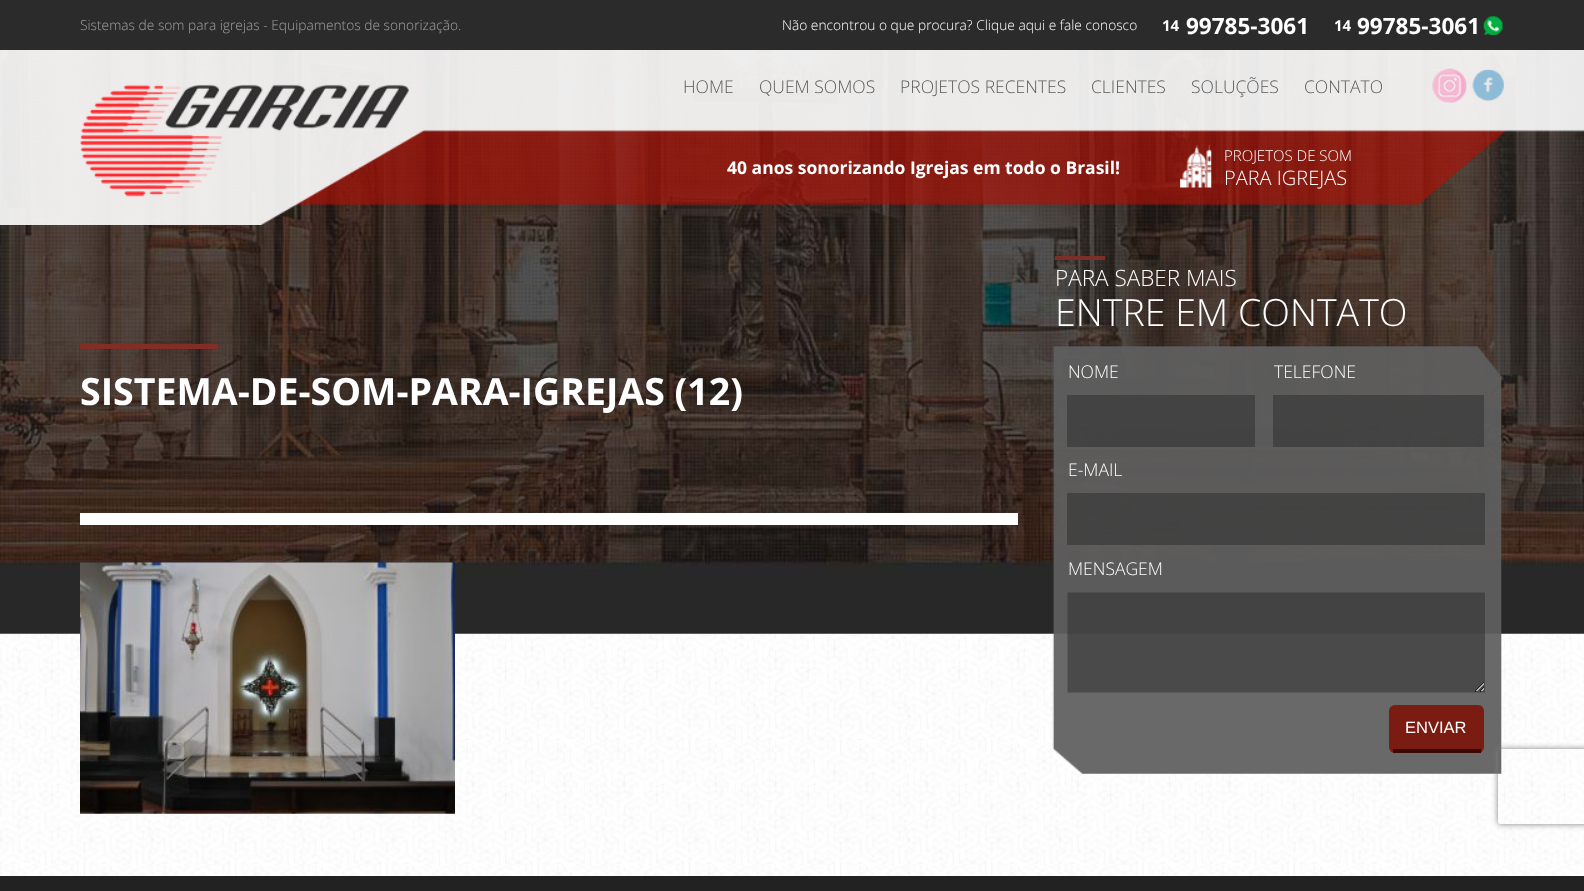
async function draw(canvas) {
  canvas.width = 1584
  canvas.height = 891
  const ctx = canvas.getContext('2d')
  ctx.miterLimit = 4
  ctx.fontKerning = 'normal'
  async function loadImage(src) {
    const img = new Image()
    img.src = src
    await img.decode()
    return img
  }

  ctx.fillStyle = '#fff'
  ctx.fillRect(0, 0, 1584, 891)
  ctx.drawImage(await loadImage('image0.png'), 0, 633, 1584, 243)
  ctx.drawImage(await loadImage('image1.png'), 0, 50, 1584, 584)
  ctx.fillStyle = '#2b2b2b'
  ctx.fillRect(0, 0, 1584, 50)
  ctx.font = '300 13.75px Open Sans'
  ctx.fillStyle = '#a0a0a0'
  ctx.fillText('Sistemas de som para igrejas - Equipamentos de sonorização.', 80, 30)
  ctx.fillStyle = '#fff'
  ctx.fillText('Não encontrou o que procura? Clique aqui e fale conosco', 782, 30)
  ctx.font = 'bold 15px Open Sans'
  ctx.fillText('14', 1162, 31)
  ctx.font = 'bold 22.5px Open Sans'
  ctx.fillText('99785-3061', 1186, 34)
  ctx.drawImage(await loadImage('image2.png'), 1483, 16, 20, 20)
  ctx.font = 'bold 15px Open Sans'
  ctx.fillText('14', 1334, 31)
  ctx.font = 'bold 22.5px Open Sans'
  ctx.fillText('99785-3061', 1357, 34)
  ctx.drawImage(await loadImage('image3.png'), 0, 50, 1584, 175)
  ctx.drawImage(await loadImage('image4.png'), 80, 84, 329, 113)
  ctx.font = '300 17.5px Open Sans'
  ctx.fillStyle = '#5a5a5a'
  ctx.fillText('HOME', 683, 93)
  ctx.fillText('QUEM SOMOS', 759, 93)
  ctx.fillText('PROJETOS RECENTES', 900, 93)
  ctx.fillText('CLIENTES', 1091, 93)
  ctx.fillText('SOLUÇÕES', 1191, 93)
  ctx.fillText('CONTATO', 1304, 93)
  ctx.drawImage(await loadImage('image5.png'), 1432, 68, 35, 35)
  ctx.drawImage(await loadImage('image6.png'), 1472, 69, 32, 33)
  ctx.font = 'bold 17.5px Open Sans'
  ctx.fillStyle = '#fff'
  ctx.fillText('40 anos sonorizando Igrejas em todo o Brasil!', 727, 174)
  ctx.drawImage(await loadImage('image7.png'), 1180, 145, 32, 43)
  ctx.font = '300 15px Open Sans'
  ctx.fillText('PROJETOS DE SOM', 1224, 161)
  ctx.font = '300 20px Open Sans'
  ctx.fillText('PARA IGREJAS', 1224, 185)
  ctx.fillStyle = '#822e26'
  ctx.fillRect(80, 344, 138, 5)
  ctx.font = 'bold 37.5px Open Sans'
  ctx.fillStyle = '#fff'
  ctx.fillText('SISTEMA-DE-SOM-PARA-IGREJAS (12)', 80, 405)
  ctx.fillStyle = '#7c2e28'
  ctx.fillRect(1055, 256, 50, 4)
  ctx.font = '300 22.5px Open Sans'
  ctx.fillStyle = '#fff'
  ctx.fillText('PARA SABER MAIS', 1055, 286)
  ctx.font = '300 37.5px Open Sans'
  ctx.fillText('ENTRE EM CONTATO', 1055, 326)
  ctx.drawImage(await loadImage('image8.png'), 1052, 346, 450, 428)
  ctx.font = '300 17.5px Open Sans'
  ctx.fillText('NOME', 1068, 378)
  ctx.fillStyle = '#26262673'
  ctx.fillRect(1067, 395, 188, 52)
  ctx.fillStyle = '#fff'
  ctx.fillText('TELEFONE', 1274, 378)
  ctx.fillStyle = '#26262673'
  ctx.fillRect(1273, 395, 211, 52)
  ctx.fillStyle = '#fff'
  ctx.fillText('E-MAIL', 1068, 476)
  ctx.fillStyle = '#26262673'
  ctx.fillRect(1067, 493, 418, 52)
  ctx.fillStyle = '#fff'
  ctx.fillText('MENSAGEM', 1068, 575)
  ctx.drawImage(await loadImage('image9.png'), 1067, 592, 418, 101)
  ctx.fillStyle = '#7b1c13'
  ctx.beginPath()
  ctx.roundRect(1389, 705, 95, 48, 6)
  ctx.fill()
  ctx.fillStyle = '#3a0a05'
  ctx.fillRect(1393, 749, 88, 4)
  ctx.font = '16.5px Liberation Sans'
  ctx.fillStyle = '#fff'
  ctx.fillText('ENVIAR', 1405, 733)
  ctx.fillRect(80, 513, 938, 12)
  ctx.drawImage(await loadImage('image10.png'), 80, 562, 375, 252)
  ctx.fillStyle = '#222'
  ctx.fillRect(0, 876, 1584, 15)
  ctx.save()
  ctx.beginPath()
  ctx.moveTo(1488, 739)
  ctx.lineTo(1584, 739)
  ctx.lineTo(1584, 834)
  ctx.lineTo(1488, 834)
  ctx.closePath()
  ctx.moveTo(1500.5, 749)
  ctx.lineTo(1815.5, 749)
  ctx.bezierCurveTo(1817, 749, 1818, 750, 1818, 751.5)
  ctx.lineTo(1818, 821.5)
  ctx.bezierCurveTo(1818, 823, 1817, 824, 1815.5, 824)
  ctx.lineTo(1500.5, 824)
  ctx.bezierCurveTo(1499, 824, 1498, 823, 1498, 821.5)
  ctx.lineTo(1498, 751.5)
  ctx.bezierCurveTo(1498, 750, 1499, 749, 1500.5, 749)
  ctx.closePath()
  ctx.clip('evenodd')
  ctx.fillStyle = '#808080'
  ctx.filter = 'blur(3px)'
  ctx.beginPath()
  ctx.roundRect(1498, 749, 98, 75, 2.5)
  ctx.fill()
  ctx.filter = 'none'
  ctx.restore()
}

draw(document.querySelector('canvas'))
